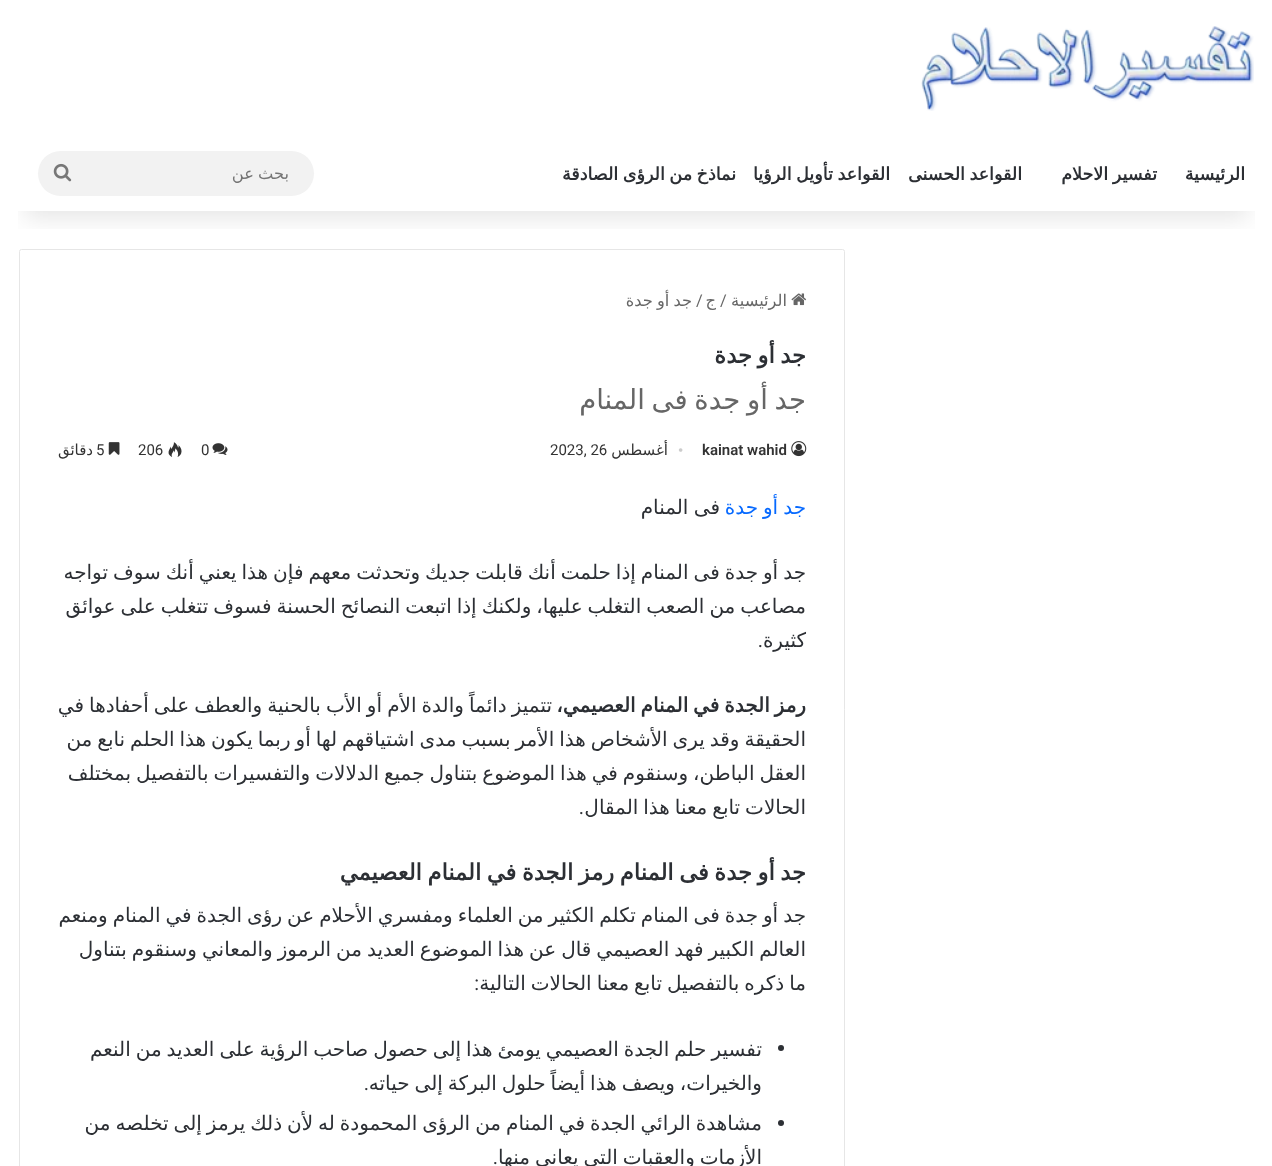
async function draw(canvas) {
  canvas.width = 1272
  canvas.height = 1166
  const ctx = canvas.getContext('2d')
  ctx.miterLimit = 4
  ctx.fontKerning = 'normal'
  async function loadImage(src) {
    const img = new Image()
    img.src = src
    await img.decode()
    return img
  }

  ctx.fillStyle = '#fff'
  ctx.fillRect(0, 0, 1272, 1166)
  ctx.beginPath()
  ctx.roundRect(19.5, 249.5, 825, 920, 2)
  ctx.strokeStyle = '#e6e6e6'
  ctx.stroke()
  ctx.save()
  ctx.beginPath()
  ctx.rect(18, 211, 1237, 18)
  ctx.clip()
  ctx.fillStyle = '#0000001a'
  ctx.filter = 'blur(12.5px)'
  ctx.beginPath()
  ctx.rect(25, 56, 1223, 162)
  ctx.fill()
  ctx.filter = 'none'
  ctx.restore()
  ctx.drawImage(await loadImage('image0.png'), 921, 26, 333, 85)
  ctx.direction = 'rtl'
  ctx.font = 'bold 17.5px DejaVu Sans'
  ctx.fillStyle = '#2c2f34'
  ctx.fillText('الرئيسية', 1245, 180)
  ctx.wordSpacing = '-1px'
  ctx.fillText('تفسير الاحلام', 1157, 180)
  ctx.fillText('القواعد الحسنى', 1022, 180)
  ctx.fillText('القواعد تأويل الرؤيا', 890, 180)
  ctx.fillText('نماذخ من الرؤى الصادقة', 736, 180)
  ctx.fillStyle = '#f2f2f2'
  ctx.beginPath()
  ctx.roundRect(38, 151, 276, 45, 22.5)
  ctx.fill()
  ctx.font = '16.25px DejaVu Sans'
  ctx.fillStyle = '#757575'
  ctx.fillText('بحث عن', 289, 179)
  ctx.drawImage(await loadImage('image1.png'), 53, 163, 19, 19)
  ctx.drawImage(await loadImage('image2.png'), 791, 293, 16, 13)
  ctx.wordSpacing = '0px'
  ctx.fillStyle = '#666'
  ctx.fillText('الرئيسية', 787, 306)
  ctx.direction = 'ltr'
  ctx.font = '16.25px Roboto'
  ctx.fillText('/', 720, 306)
  ctx.direction = 'rtl'
  ctx.font = '16.25px DejaVu Sans'
  ctx.fillText('ج', 716, 306)
  ctx.direction = 'ltr'
  ctx.font = '16.25px Roboto'
  ctx.fillText('/', 696, 306)
  ctx.wordSpacing = '-1px'
  ctx.direction = 'rtl'
  ctx.font = '16.25px DejaVu Sans'
  ctx.fillText('جد أو جدة', 692, 306)
  ctx.wordSpacing = '-1.5px'
  ctx.font = 'bold 22.5px DejaVu Sans'
  ctx.fillStyle = '#2c2f34'
  ctx.fillText('جد أو جدة', 806, 363)
  ctx.wordSpacing = '-2px'
  ctx.font = '27.5px DejaVu Sans'
  ctx.fillStyle = '#666'
  ctx.fillText('جد أو جدة فی المنام', 806, 409)
  ctx.drawImage(await loadImage('image3.png'), 791, 441, 16, 16)
  ctx.wordSpacing = '0px'
  ctx.direction = 'ltr'
  ctx.font = '600 15px Roboto'
  ctx.fillStyle = '#333'
  ctx.fillText('kainat wahid', 702, 455)
  ctx.font = '15px Liberation Serif'
  ctx.fillStyle = '#ccc'
  ctx.fillText('•', 678, 455)
  ctx.direction = 'rtl'
  ctx.font = '15px DejaVu Sans'
  ctx.fillStyle = '#333'
  ctx.fillText('أغسطس', 668, 455)
  ctx.direction = 'ltr'
  ctx.font = '15px Roboto'
  ctx.fillText('2023, 26', 550, 455)
  ctx.drawImage(await loadImage('image4.png'), 212, 443, 16, 12)
  ctx.fillText('0', 201, 455)
  ctx.drawImage(await loadImage('image5.png'), 168, 442, 14, 15)
  ctx.fillText('206', 138, 455)
  ctx.drawImage(await loadImage('image6.png'), 108, 442, 12, 13)
  ctx.fillText('5', 96, 455)
  ctx.direction = 'rtl'
  ctx.font = '15px DejaVu Sans'
  ctx.fillText('دقائق', 93, 455)
  ctx.wordSpacing = '-1.4px'
  ctx.font = '20px DejaVu Sans'
  ctx.fillStyle = '#0669ff'
  ctx.fillText('جد أو جدة', 806, 514)
  ctx.wordSpacing = '-1px'
  ctx.fillStyle = '#2c2f34'
  ctx.fillText('فی المنام', 720, 514)
  ctx.wordSpacing = '-1.4px'
  ctx.fillText('جد أو جدة فی المنام إذا حلمت أنك قابلت جديك وتحدثت معهم فإن هذا يعني أنك سوف تواجه', 806, 579)
  ctx.fillText('مصاعب من الصعب التغلب عليها، ولكنك إذا اتبعت النصائح الحسنة فسوف تتغلب على عوائق', 806, 613)
  ctx.wordSpacing = '0px'
  ctx.fillText('كثيرة', 806, 647)
  ctx.font = '20px Roboto'
  ctx.fillText('.', 763, 647)
  ctx.wordSpacing = '-1.5px'
  ctx.font = 'bold 20px DejaVu Sans'
  ctx.fillText('رمز الجدة في المنام العصيمي،', 806, 712)
  ctx.wordSpacing = '-1.25px'
  ctx.font = '20px DejaVu Sans'
  ctx.fillText('تتميز دائماً والدة الأم أو الأب بالحنية والعطف على أحفادها في', 552, 712)
  ctx.wordSpacing = '-1.4px'
  ctx.fillText('الحقيقة وقد يرى الأشخاص هذا الأمر بسبب مدى اشتياقهم لها أو ربما يكون هذا الحلم نابع من', 806, 746)
  ctx.fillText('العقل الباطن، وسنقوم في هذا الموضوع بتناول جميع الدلالات والتفسيرات بالتفصيل بمختلف', 806, 780)
  ctx.fillText('الحالات تابع معنا هذا المقال', 806, 814)
  ctx.wordSpacing = '0px'
  ctx.font = '20px Roboto'
  ctx.fillText('.', 584, 814)
  ctx.wordSpacing = '-1.5px'
  ctx.font = 'bold 22.5px DejaVu Sans'
  ctx.fillText('جد أو جدة فی المنام رمز الجدة في المنام العصيمي', 806, 880)
  ctx.wordSpacing = '-1.4px'
  ctx.font = '20px DejaVu Sans'
  ctx.fillText('جد أو جدة فی المنام تكلم الكثير من العلماء ومفسري الأحلام عن رؤى الجدة في المنام ومنعم', 806, 922)
  ctx.fillText('العالم الكبير فهد العصيمي قال عن هذا الموضوع العديد من الرموز والمعاني وسنقوم بتناول', 806, 956)
  ctx.fillText('ما ذكره بالتفصيل تابع معنا الحالات التالية', 806, 990)
  ctx.wordSpacing = '0px'
  ctx.font = '20px Roboto'
  ctx.fillText(':', 479, 990)
  ctx.beginPath()
  ctx.arc(781, 1048, 3, 0, 2 * Math.PI)
  ctx.fill()
  ctx.wordSpacing = '-1.4px'
  ctx.font = '20px DejaVu Sans'
  ctx.fillText('تفسير حلم الجدة العصيمي يومئ هذا إلى حصول صاحب الرؤية على العديد من النعم', 762, 1056)
  ctx.fillText('والخيرات، ويصف هذا أيضاً حلول البركة إلى حياته', 762, 1090)
  ctx.wordSpacing = '0px'
  ctx.font = '20px Roboto'
  ctx.fillText('.', 369, 1090)
  ctx.beginPath()
  ctx.arc(781, 1123, 3, 0, 2 * Math.PI)
  ctx.fill()
  ctx.wordSpacing = '-1.4px'
  ctx.font = '20px DejaVu Sans'
  ctx.fillText('مشاهدة الرائي الجدة في المنام من الرؤى المحمودة له لأن ذلك يرمز إلى تخلصه من', 762, 1130)
  ctx.fillText('الأزمات والعقبات التي يعاني منها', 762, 1164)
  ctx.wordSpacing = '0px'
  ctx.font = '20px Roboto'
  ctx.fillText('.', 498, 1164)
}

draw(document.querySelector('canvas'))
